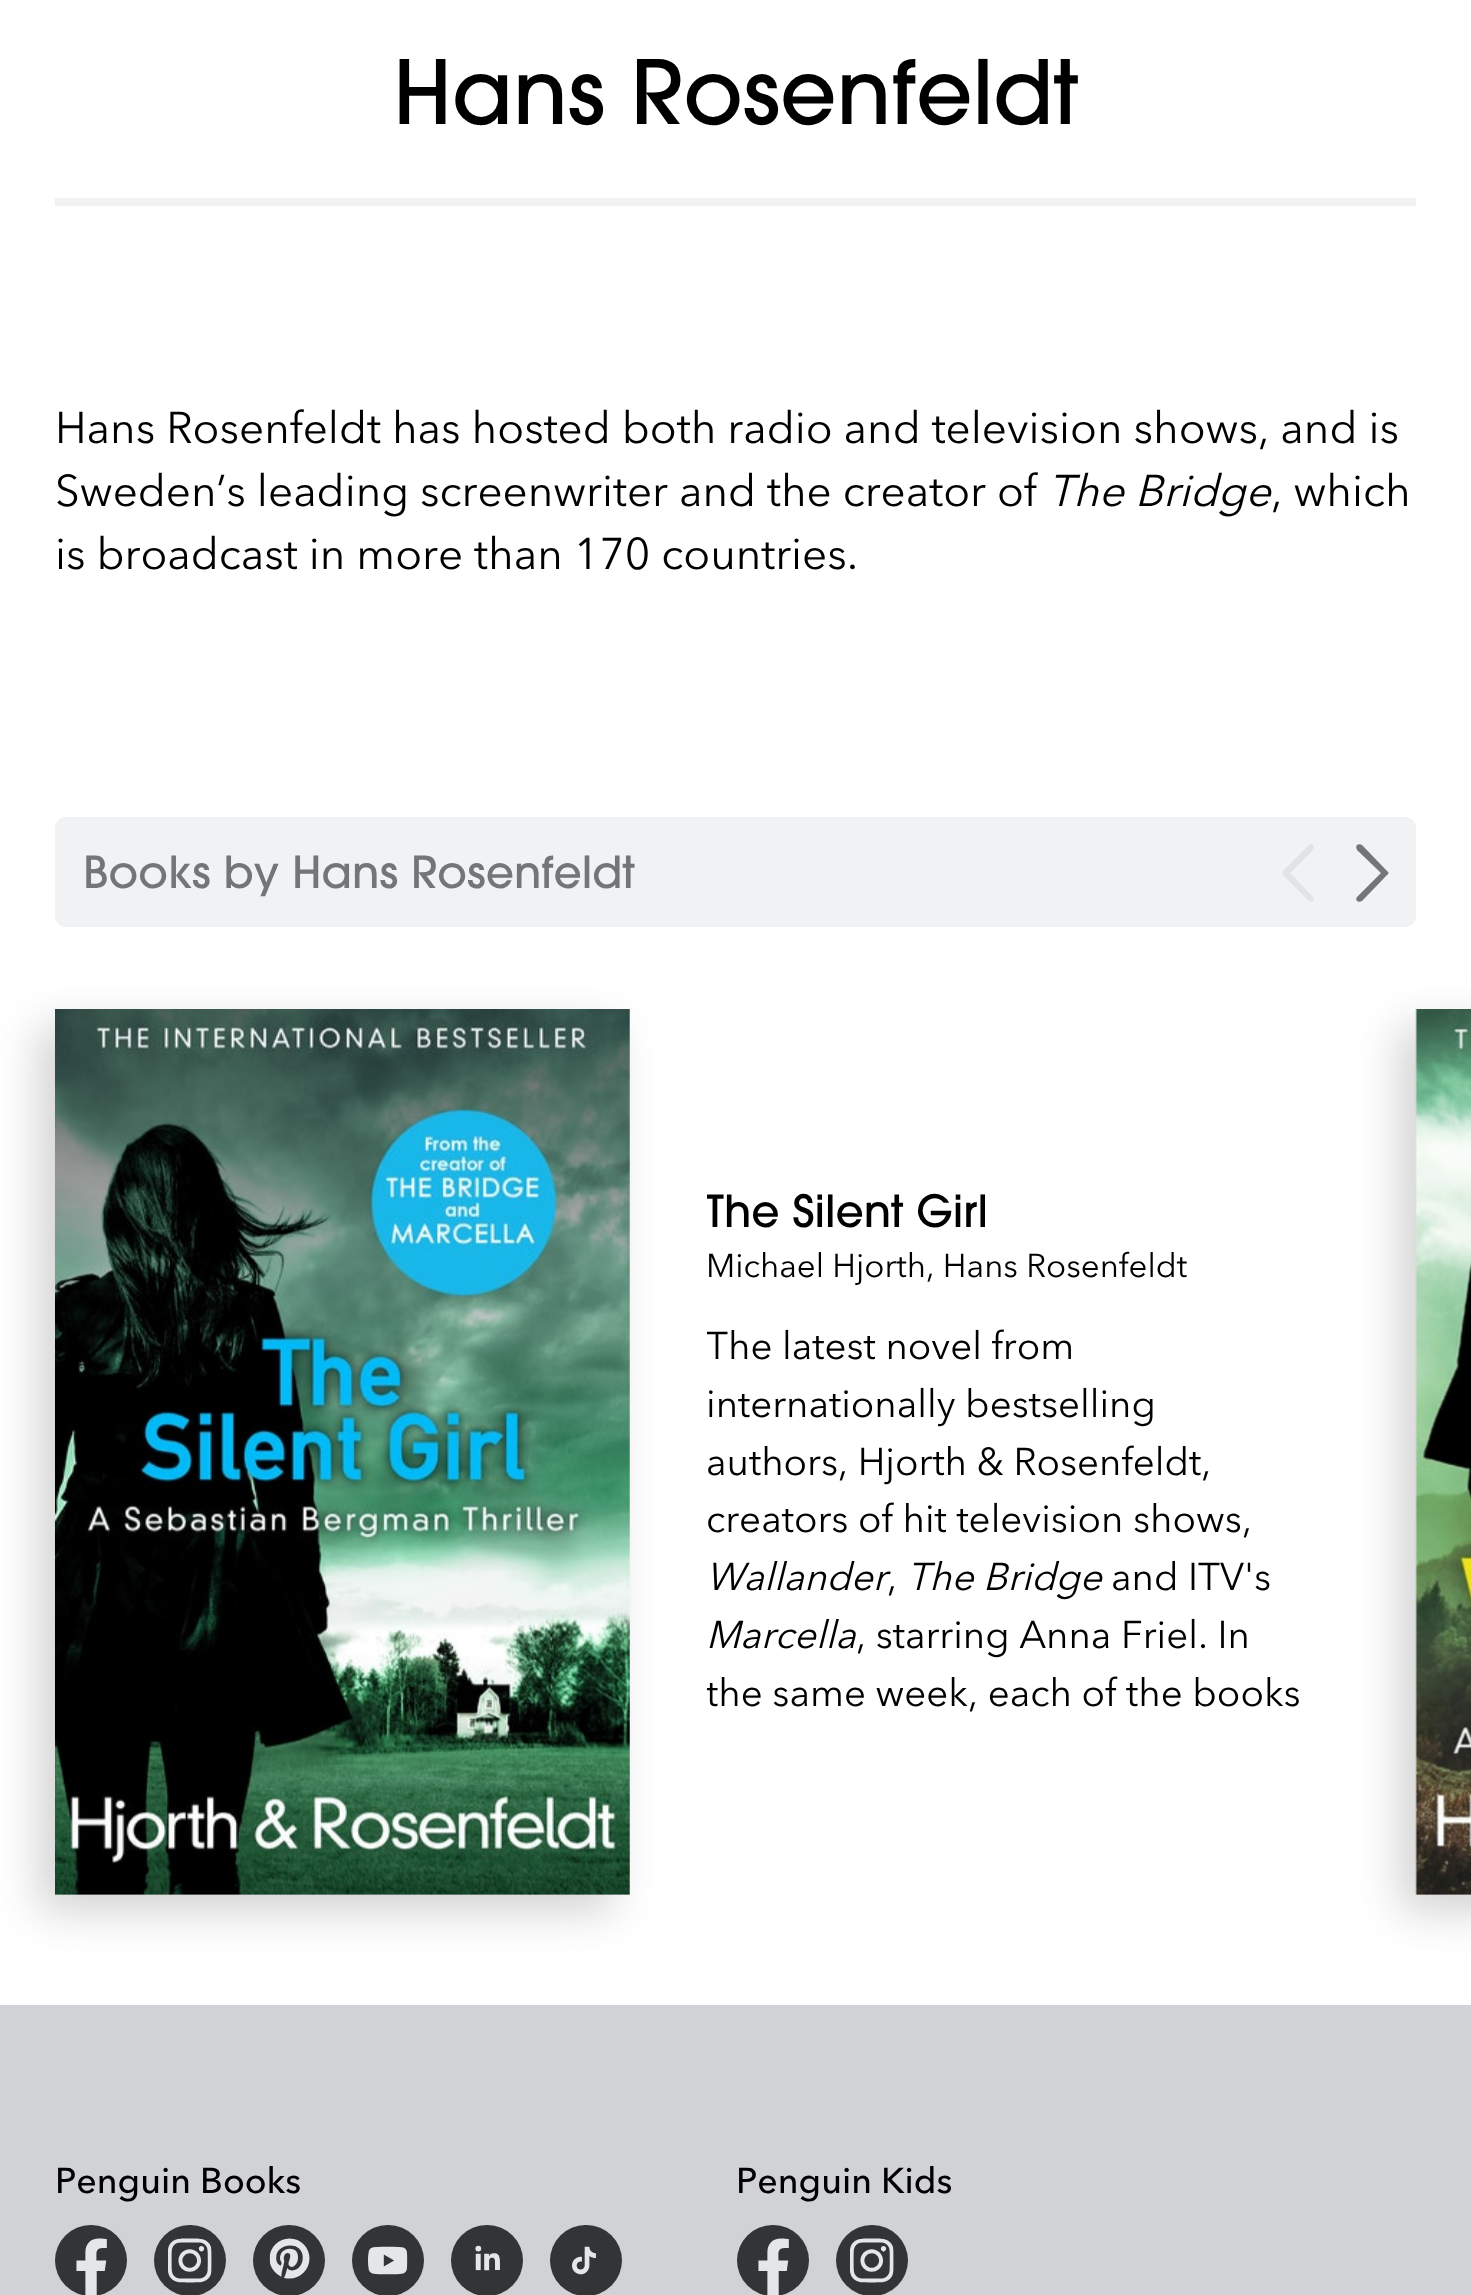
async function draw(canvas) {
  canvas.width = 1471
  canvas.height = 2295
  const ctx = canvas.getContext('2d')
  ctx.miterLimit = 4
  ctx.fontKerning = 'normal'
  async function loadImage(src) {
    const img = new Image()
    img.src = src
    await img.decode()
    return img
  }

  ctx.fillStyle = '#fff'
  ctx.fillRect(0, 0, 1471, 2295)
  ctx.font = '500 88px "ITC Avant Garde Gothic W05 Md"'
  ctx.fillStyle = '#000'
  ctx.fillText('Hans Rosenfeldt', 393, 124)
  ctx.fillStyle = '#f1f1f1'
  ctx.fillRect(55, 198, 1361, 8)
  ctx.font = '44px Avenir Next'
  ctx.fillStyle = '#000'
  ctx.fillText('Hans Rosenfeldt has hosted both radio and television shows, and is', 55, 443)
  ctx.fillText('Sweden’s leading screenwriter and the creator of', 55, 506)
  ctx.font = 'italic 44px Avenir Next'
  ctx.fillText('The Bridge', 1048, 506)
  ctx.font = '44px Avenir Next'
  ctx.fillText(', which', 1271, 506)
  ctx.fillText('is broadcast in more than 170 countries.', 55, 569)
  ctx.fillStyle = '#f1f2f4'
  ctx.beginPath()
  ctx.roundRect(55, 817, 1361, 110, 11)
  ctx.fill()
  ctx.font = '500 44px "ITC Avant Garde Gothic W05 Md"'
  ctx.fillStyle = '#747578'
  ctx.fillText('Books by Hans Rosenfeldt', 83, 888)
  ctx.fillStyle = '#e2e3e5'
  ctx.beginPath()
  ctx.moveTo(1290, 873)
  ctx.lineTo(1313, 850)
  ctx.bezierCurveTo(1314, 848, 1314, 846, 1313, 845)
  ctx.bezierCurveTo(1312, 844, 1310, 844, 1309, 845)
  ctx.lineTo(1283, 871)
  ctx.bezierCurveTo(1282, 872, 1282, 874, 1283, 875)
  ctx.lineTo(1309, 901)
  ctx.bezierCurveTo(1310, 902, 1312, 902, 1313, 901)
  ctx.bezierCurveTo(1314, 900, 1314, 898, 1313, 897)
  ctx.closePath()
  ctx.fill()
  ctx.fillStyle = '#747578'
  ctx.beginPath()
  ctx.moveTo(1381, 873)
  ctx.lineTo(1357, 850)
  ctx.bezierCurveTo(1356, 848, 1356, 846, 1357, 845)
  ctx.bezierCurveTo(1358, 844, 1360, 844, 1362, 845)
  ctx.lineTo(1387, 871)
  ctx.bezierCurveTo(1389, 872, 1389, 874, 1387, 875)
  ctx.lineTo(1362, 901)
  ctx.bezierCurveTo(1360, 902, 1358, 902, 1357, 901)
  ctx.bezierCurveTo(1356, 900, 1356, 898, 1357, 897)
  ctx.closePath()
  ctx.fill()
  ctx.fillStyle = '#6c6a6a4d'
  ctx.filter = 'blur(22px)'
  ctx.beginPath()
  ctx.rect(39, 1026, 574, 885)
  ctx.fill()
  ctx.filter = 'none'
  ctx.drawImage(await loadImage('image0.png'), 55, 1009, 575, 886)
  ctx.save()
  ctx.beginPath()
  ctx.rect(707, 1183, 599, 55)
  ctx.clip()
  ctx.fillStyle = '#000'
  ctx.fillText('The Silent Girl', 706, 1227)
  ctx.restore()
  ctx.font = '33px Avenir Next'
  ctx.fillStyle = '#000'
  ctx.fillText('Michael Hjorth, Hans Rosenfeldt', 706, 1277)
  ctx.save()
  ctx.beginPath()
  ctx.rect(707, 1315, 599, 404)
  ctx.clip()
  ctx.font = '38.5px Avenir Next'
  ctx.fillText('The latest novel from', 706, 1359)
  ctx.restore()
  ctx.font = '38.5px Avenir Next'
  ctx.fillText('internationally bestselling', 706, 1417)
  ctx.fillText('authors, Hjorth & Rosenfeldt,', 706, 1475)
  ctx.fillText('creators of hit television shows,', 706, 1532)
  ctx.font = 'italic 38.5px Avenir Next'
  ctx.fillText('Wallander', 706, 1590)
  ctx.fillText('The Bridge', 907, 1590)
  ctx.font = '38.5px Avenir Next'
  ctx.fillText('and ITV\'s', 1111, 1590)
  ctx.fillText(',', 887, 1590)
  ctx.font = 'italic 38.5px Avenir Next'
  ctx.fillText('Marcella', 706, 1648)
  ctx.font = '38.5px Avenir Next'
  ctx.fillText(', starring Anna Friel. In', 856, 1648)
  ctx.save()
  ctx.beginPath()
  ctx.rect(707, 1315, 599, 404)
  ctx.clip()
  ctx.fillText('the same week, each of the books', 706, 1706)
  ctx.restore()
  ctx.fillStyle = '#6c6a6a4d'
  ctx.filter = 'blur(22px)'
  ctx.beginPath()
  ctx.rect(1400, 1026, 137, 885)
  ctx.fill()
  ctx.filter = 'none'
  ctx.drawImage(await loadImage('image1.png'), 1415, 1009, 56, 886)
  ctx.fillStyle = '#d1d2d6'
  ctx.fillRect(0, 2005, 1471, 290)
  ctx.font = '500 35.75px Avenir Next'
  ctx.fillStyle = '#000'
  ctx.fillText('Penguin Books', 55, 2193)
  ctx.fillStyle = '#333436'
  ctx.beginPath()
  ctx.roundRect(55, 2225, 72, 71, 35.5)
  ctx.fill()
  ctx.drawImage(await loadImage('image2.png'), 76, 2238, 31, 57)
  ctx.beginPath()
  ctx.roundRect(154, 2225, 72, 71, 35.5)
  ctx.fill()
  ctx.drawImage(await loadImage('image3.png'), 168, 2238, 44, 45)
  ctx.beginPath()
  ctx.roundRect(253, 2225, 72, 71, 35.5)
  ctx.fill()
  ctx.drawImage(await loadImage('image4.png'), 269, 2238, 41, 41)
  ctx.beginPath()
  ctx.roundRect(352, 2225, 72, 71, 35.5)
  ctx.fill()
  ctx.drawImage(await loadImage('image5.png'), 368, 2246, 40, 29)
  ctx.beginPath()
  ctx.roundRect(451, 2225, 72, 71, 35.5)
  ctx.fill()
  ctx.drawImage(await loadImage('image6.png'), 475, 2245, 25, 26)
  ctx.beginPath()
  ctx.roundRect(550, 2225, 72, 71, 35.5)
  ctx.fill()
  ctx.drawImage(await loadImage('image7.png'), 572, 2246, 24, 29)
  ctx.fillStyle = '#000'
  ctx.fillText('Penguin Kids', 736, 2193)
  ctx.fillStyle = '#333436'
  ctx.beginPath()
  ctx.roundRect(737, 2225, 72, 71, 35.5)
  ctx.fill()
  ctx.drawImage(await loadImage('image2.png'), 758, 2238, 31, 57)
  ctx.beginPath()
  ctx.roundRect(836, 2225, 72, 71, 35.5)
  ctx.fill()
  ctx.drawImage(await loadImage('image3.png'), 850, 2238, 44, 45)
}

draw(document.querySelector('canvas'))
